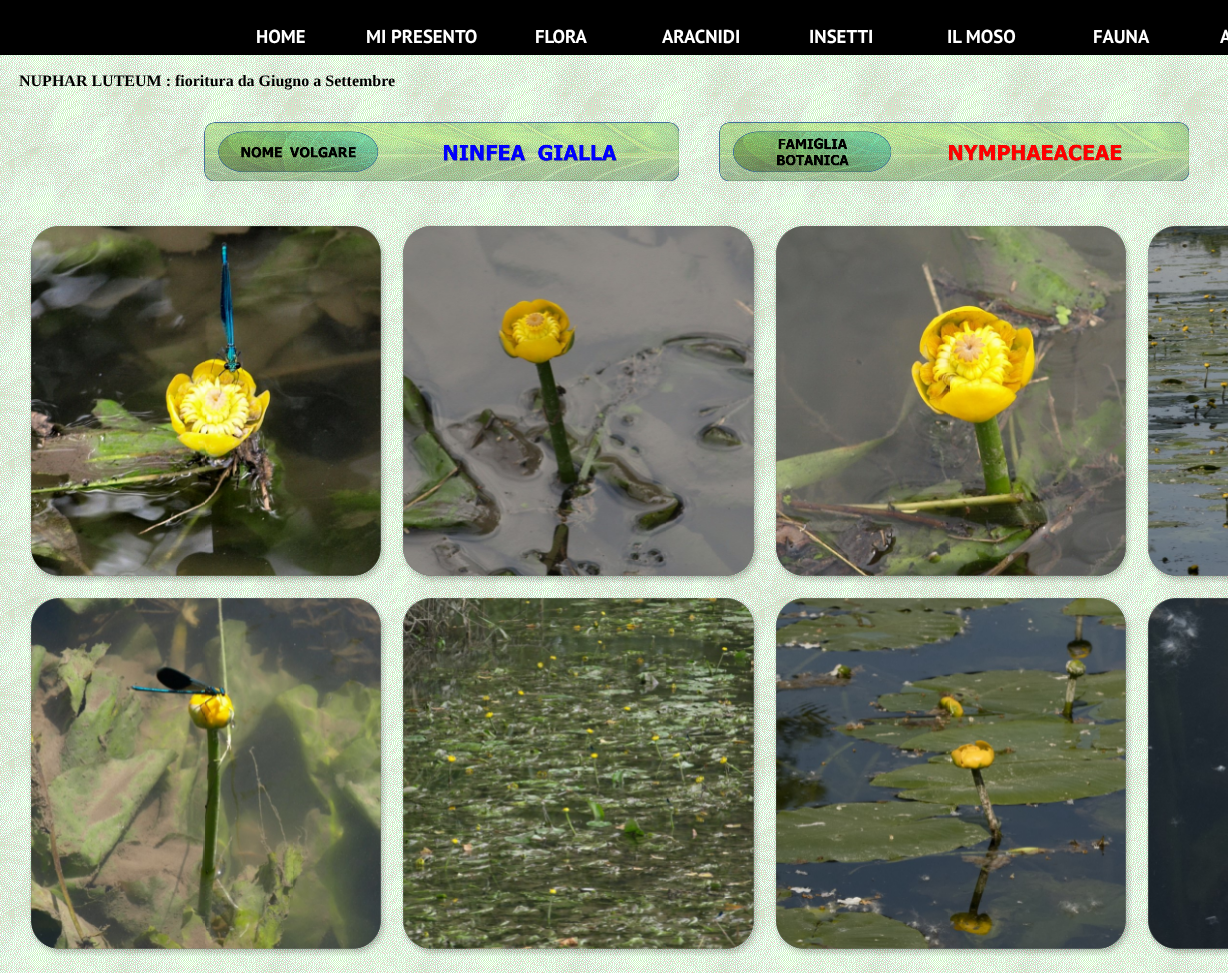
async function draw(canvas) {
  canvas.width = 1228
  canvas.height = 973
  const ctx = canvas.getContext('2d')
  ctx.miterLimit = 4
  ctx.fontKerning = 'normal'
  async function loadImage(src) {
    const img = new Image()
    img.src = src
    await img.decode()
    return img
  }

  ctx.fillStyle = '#000'
  ctx.fillRect(0, 0, 1228, 973)
  ctx.font = 'bold 18.75px PT Sans'
  ctx.fillStyle = '#fff'
  ctx.fillText('HOME', 256, 43)
  ctx.fillText('MI PRESENTO', 366, 43)
  ctx.fillText('FLORA', 535, 43)
  ctx.fillText('ARACNIDI', 662, 43)
  ctx.fillText('INSETTI', 809, 43)
  ctx.fillText('IL MOSO', 947, 43)
  ctx.fillText('FAUNA', 1093, 43)
  ctx.fillText('A', 1220, 43)
  ctx.drawImage(await loadImage('image0.png'), 0, 55, 1228, 918)
  ctx.font = 'bold 16px Liberation Serif'
  ctx.fillStyle = '#000'
  ctx.fillText('NUPHAR LUTEUM : fioritura da Giugno a Settembre', 19, 86)
  ctx.drawImage(await loadImage('image1.png'), 204, 122, 475, 59)
  ctx.drawImage(await loadImage('image2.png'), 719, 122, 470, 59)
  ctx.drawImage(await loadImage('image3.png'), 29, 224, 358, 359)
  ctx.drawImage(await loadImage('image4.png'), 401, 225, 359, 358)
  ctx.drawImage(await loadImage('image5.png'), 774, 224, 358, 359)
  ctx.drawImage(await loadImage('image6.png'), 1146, 225, 82, 358)
  ctx.drawImage(await loadImage('image7.png'), 29, 597, 358, 359)
  ctx.drawImage(await loadImage('image8.png'), 401, 597, 359, 359)
  ctx.drawImage(await loadImage('image9.png'), 774, 597, 358, 359)
  ctx.drawImage(await loadImage('image10.png'), 1146, 597, 82, 359)
}

draw(document.querySelector('canvas'))
